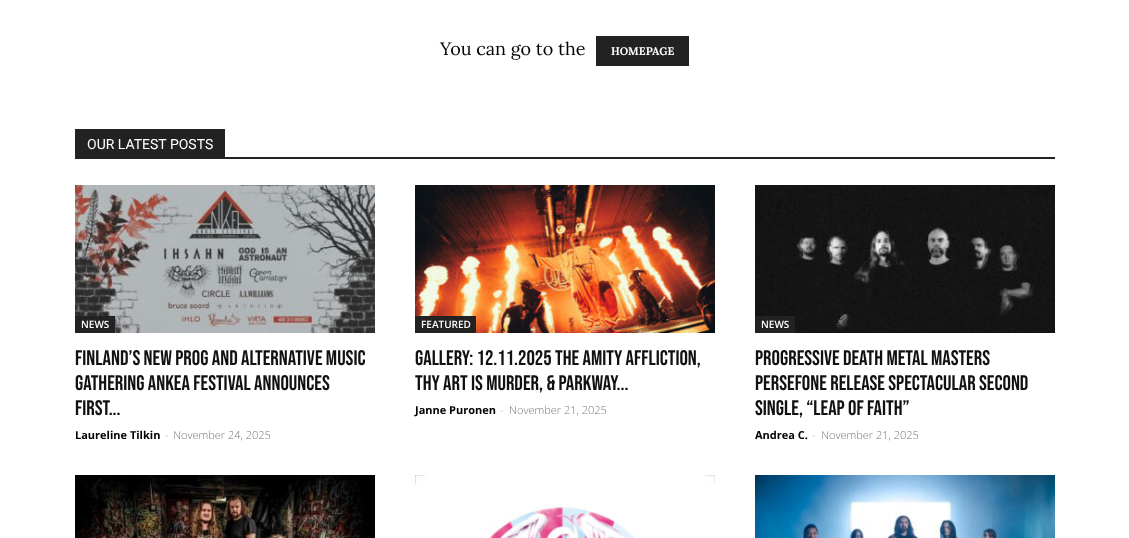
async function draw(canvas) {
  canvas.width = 1129
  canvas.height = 538
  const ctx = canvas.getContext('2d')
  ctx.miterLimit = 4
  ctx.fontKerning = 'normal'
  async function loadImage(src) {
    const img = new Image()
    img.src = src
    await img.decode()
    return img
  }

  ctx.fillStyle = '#fff'
  ctx.fillRect(0, 0, 1129, 538)
  ctx.font = '18px Lora'
  ctx.fillStyle = '#000'
  ctx.fillText('You can go to the', 440, 55)
  ctx.fillStyle = '#222'
  ctx.fillRect(596, 36, 93, 30)
  ctx.font = 'bold 11px Lora'
  ctx.fillStyle = '#fff'
  ctx.fillText('HOMEPAGE', 611, 55)
  ctx.fillStyle = '#222'
  ctx.fillRect(75, 157, 980, 2)
  ctx.fillRect(75, 129, 150, 28)
  ctx.font = '14px Roboto'
  ctx.fillStyle = '#fff'
  ctx.fillText('OUR LATEST POSTS', 87, 149)
  ctx.drawImage(await loadImage('image0.png'), 75, 185, 300, 148)
  ctx.fillStyle = '#222'
  ctx.fillRect(75, 316, 40, 17)
  ctx.font = '600 10px Open Sans'
  ctx.fillStyle = '#fff'
  ctx.fillText('NEWS', 81, 328)
  ctx.font = '21px Bebas Neue'
  ctx.fillStyle = '#111'
  ctx.fillText('Finland’s new prog and alternative music', 75, 365)
  ctx.fillText('gathering Ankea Festival announces', 75, 390)
  ctx.fillText('first...', 75, 415)
  ctx.font = 'bold 11px Open Sans'
  ctx.fillStyle = '#000'
  ctx.fillText('Laureline Tilkin', 75, 439)
  ctx.font = '11px Open Sans'
  ctx.fillStyle = '#ccc'
  ctx.fillText('-', 165, 439)
  ctx.font = '300 11px Open Sans'
  ctx.fillStyle = '#767676'
  ctx.fillText('November 24, 2025', 173, 439)
  ctx.drawImage(await loadImage('image1.png'), 415, 185, 300, 148)
  ctx.fillStyle = '#222'
  ctx.fillRect(415, 316, 61, 17)
  ctx.font = '600 10px Open Sans'
  ctx.fillStyle = '#fff'
  ctx.fillText('FEATURED', 421, 328)
  ctx.font = '21px Bebas Neue'
  ctx.fillStyle = '#111'
  ctx.fillText('GALLERY: 12.11.2025 The Amity Affliction,', 415, 365)
  ctx.fillText('Thy Art Is Murder, & Parkway...', 415, 390)
  ctx.font = 'bold 11px Open Sans'
  ctx.fillStyle = '#000'
  ctx.fillText('Janne Puronen', 415, 414)
  ctx.font = '11px Open Sans'
  ctx.fillStyle = '#ccc'
  ctx.fillText('-', 500, 414)
  ctx.font = '300 11px Open Sans'
  ctx.fillStyle = '#767676'
  ctx.fillText('November 21, 2025', 509, 414)
  ctx.drawImage(await loadImage('image2.png'), 755, 185, 300, 148)
  ctx.fillStyle = '#222'
  ctx.fillRect(755, 316, 40, 17)
  ctx.font = '600 10px Open Sans'
  ctx.fillStyle = '#fff'
  ctx.fillText('NEWS', 761, 328)
  ctx.font = '21px Bebas Neue'
  ctx.fillStyle = '#111'
  ctx.fillText('Progressive Death Metal Masters', 755, 365)
  ctx.fillText('PERSEFONE Release Spectacular Second', 755, 390)
  ctx.fillText('Single, “Leap Of Faith”', 755, 415)
  ctx.font = 'bold 11px Open Sans'
  ctx.fillStyle = '#000'
  ctx.fillText('Andrea C.', 755, 439)
  ctx.font = '11px Open Sans'
  ctx.fillStyle = '#ccc'
  ctx.fillText('-', 812, 439)
  ctx.font = '300 11px Open Sans'
  ctx.fillStyle = '#767676'
  ctx.fillText('November 21, 2025', 821, 439)
  ctx.drawImage(await loadImage('image3.png'), 75, 475, 300, 63)
  ctx.drawImage(await loadImage('image4.png'), 415, 475, 300, 63)
  ctx.drawImage(await loadImage('image5.png'), 755, 475, 300, 63)
}

draw(document.querySelector('canvas'))
